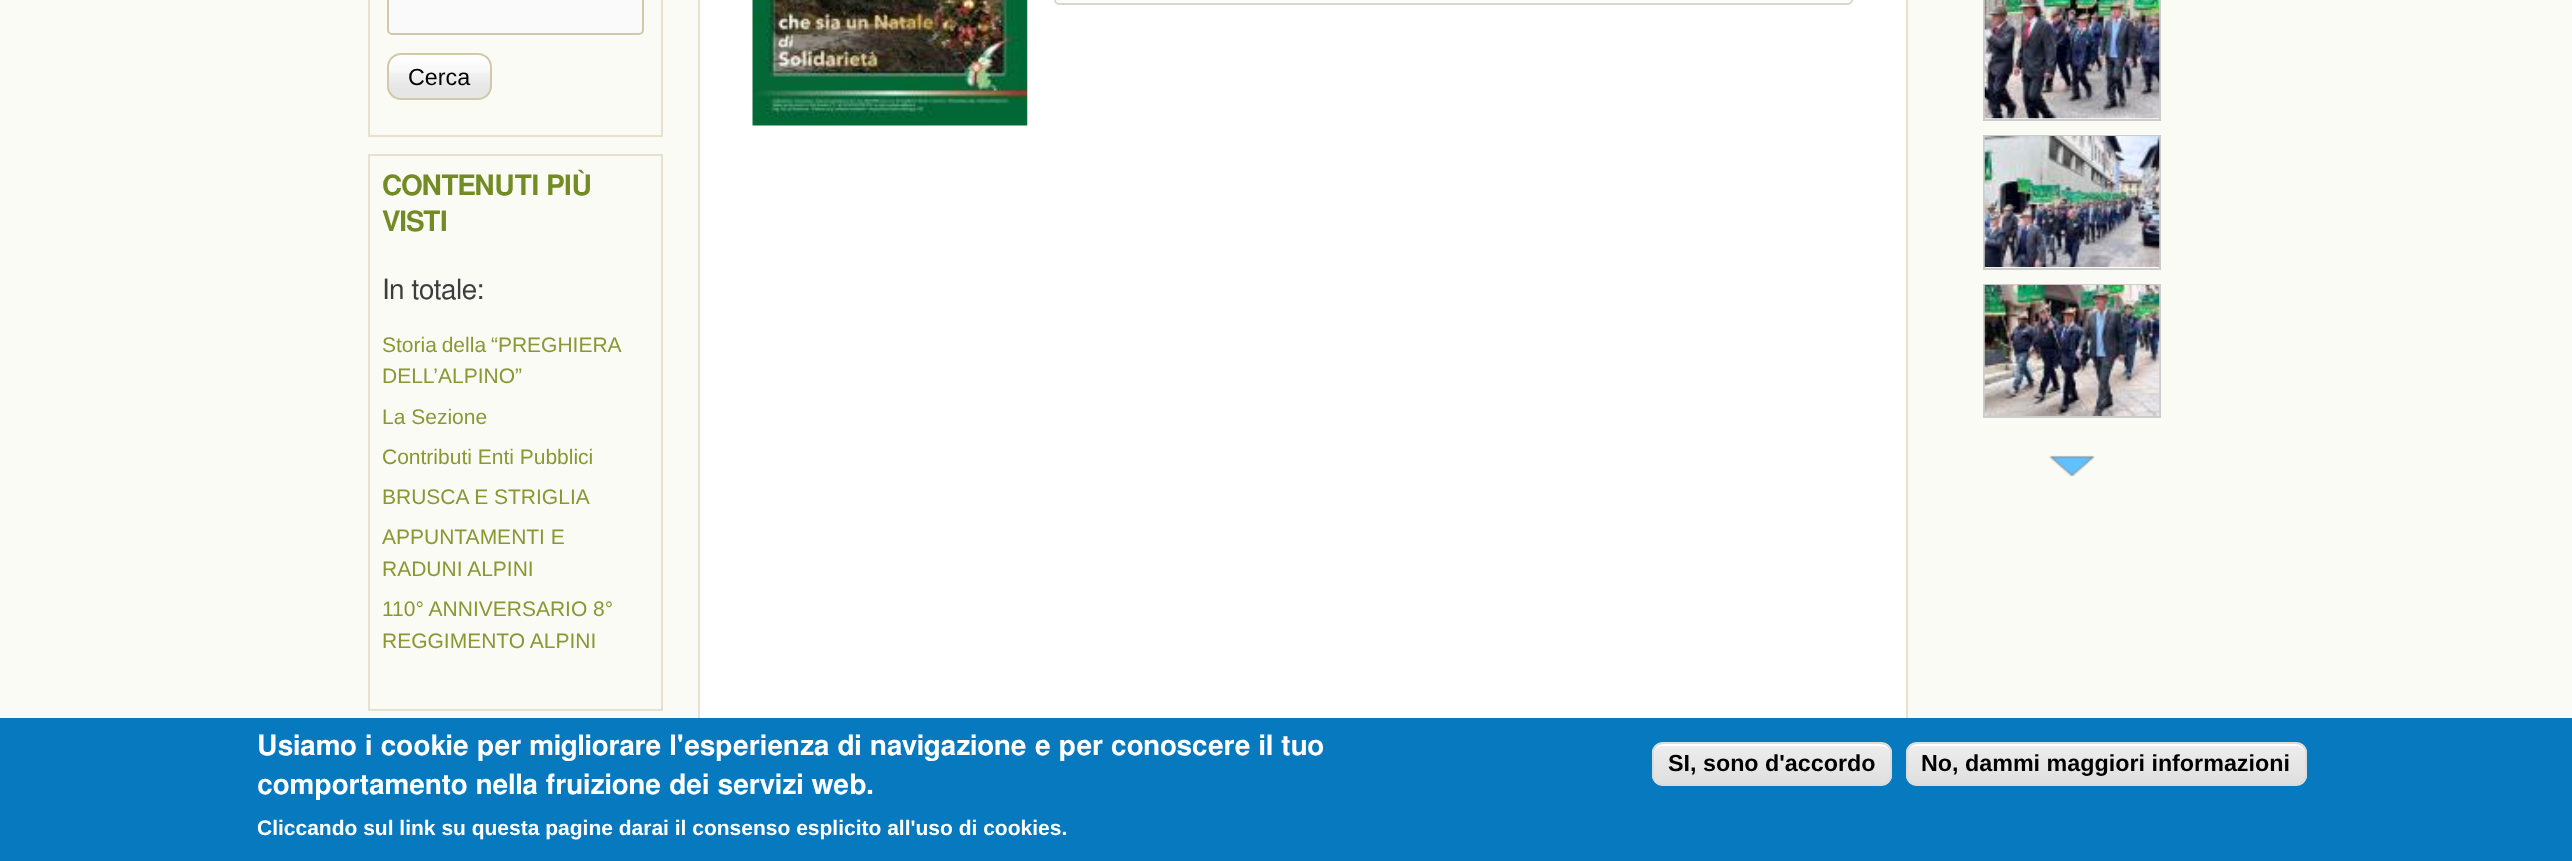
async function draw(canvas) {
  canvas.width = 2572
  canvas.height = 861
  const ctx = canvas.getContext('2d')
  ctx.miterLimit = 4
  ctx.fontKerning = 'normal'
  async function loadImage(src) {
    const img = new Image()
    img.src = src
    await img.decode()
    return img
  }
  let gradient

  ctx.fillStyle = '#fbfbf6'
  ctx.fillRect(0, 0, 2572, 861)
  ctx.strokeStyle = '#e7e1ce'
  ctx.lineWidth = 2
  ctx.strokeRect(369, -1, 293, 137)
  ctx.fillStyle = '#fafafa'
  ctx.beginPath()
  ctx.roundRect(388, -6, 255, 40, 4)
  ctx.fill()
  ctx.strokeStyle = '#d2c8aa'
  ctx.stroke()
  ctx.drawImage(await loadImage('image0.png'), 387, 54, 105, 45)
  ctx.beginPath()
  ctx.roundRect(388, 54, 103, 45, 13)
  ctx.stroke()
  ctx.font = '23.3px Liberation Sans'
  ctx.fillStyle = '#000'
  ctx.fillText('Cerca', 408, 85)
  ctx.strokeStyle = '#e7e1ce'
  ctx.strokeRect(369, 155, 293, 555)
  ctx.letterSpacing = '-0.75px'
  ctx.font = '600 28px FreeSans'
  ctx.fillStyle = '#738b25'
  ctx.fillText('CONTENUTI PIÙ', 382, 195)
  ctx.fillText('VISTI', 382, 231)
  ctx.letterSpacing = '0px'
  ctx.font = '28px FreeSans'
  ctx.fillStyle = '#3d3d3d'
  ctx.fillText('In totale:', 382, 299)
  ctx.wordSpacing = '-1px'
  ctx.font = '21px Liberation Sans'
  ctx.fillStyle = '#899833'
  ctx.fillText('Storia della “PREGHIERA', 382, 352)
  ctx.wordSpacing = '0px'
  ctx.fillText('DELL’ALPINO”', 382, 383)
  ctx.fillText('La Sezione', 382, 424)
  ctx.fillText('Contributi Enti Pubblici', 382, 464)
  ctx.fillText('BRUSCA E STRIGLIA', 382, 504)
  ctx.fillText('APPUNTAMENTI E', 382, 544)
  ctx.fillText('RADUNI ALPINI', 382, 576)
  ctx.fillText('110° ANNIVERSARIO 8°', 382, 616)
  ctx.fillText('REGGIMENTO ALPINI', 382, 648)
  ctx.fillStyle = '#fff'
  ctx.fillRect(700, 0, 1206, 718)
  ctx.strokeRect(699, -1, 1208, 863)
  ctx.drawImage(await loadImage('image1.png'), 752, 0, 276, 126)
  ctx.fillStyle = '#fdfdfb'
  ctx.beginPath()
  ctx.roundRect(1055, -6, 797, 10, 4)
  ctx.fill()
  ctx.strokeStyle = '#dad6c9'
  ctx.stroke()
  ctx.fillStyle = '#fff'
  ctx.fillRect(1985, 118, 174, 1)
  ctx.strokeStyle = '#ccc'
  ctx.strokeRect(1984, -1, 176, 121)
  ctx.drawImage(await loadImage('image2.png'), 1984, 0, 176, 119)
  ctx.fillRect(1985, 267, 174, 1)
  ctx.strokeRect(1984, 136, 176, 133)
  ctx.drawImage(await loadImage('image3.png'), 1984, 136, 176, 132)
  ctx.strokeRect(1984, 285, 176, 132)
  ctx.drawImage(await loadImage('image4.png'), 1984, 284, 176, 132)
  ctx.drawImage(await loadImage('image5.png'), 2049, 455, 46, 22)
  ctx.fillStyle = '#0779bf'
  ctx.fillRect(0, 718, 2572, 143)
  ctx.font = '600 28px FreeSans'
  ctx.fillStyle = '#fff'
  ctx.fillText('Usiamo i cookie per migliorare l\'esperienza di navigazione e per conoscere il tuo', 257, 755)
  ctx.fillText('comportamento nella fruizione dei servizi web.', 257, 794)
  ctx.font = 'bold 21px Liberation Sans'
  ctx.fillText('Cliccando sul link su questa pagine darai il consenso esplicito all\'uso di cookies.', 257, 835)
  ctx.save()
  ctx.beginPath()
  ctx.roundRect(1652, 742, 240, 44, 11)
  ctx.clip()
  gradient = ctx.createLinearGradient(1654, 744, 1654, 784)
  gradient.addColorStop(0.05, '#ededed')
  gradient.addColorStop(1, '#dfdfdf')
  ctx.fillStyle = gradient
  ctx.fillRect(1652, 744, 240, 40)
  ctx.restore()
  ctx.beginPath()
  ctx.moveTo(1662, 746)
  ctx.lineTo(1881, 746)
  ctx.bezierCurveTo(1886, 746, 1890, 749, 1890, 754)
  ctx.lineTo(1890, 753)
  ctx.bezierCurveTo(1890, 748, 1886, 744, 1881, 744)
  ctx.lineTo(1663, 744)
  ctx.bezierCurveTo(1658, 744, 1654, 748, 1654, 753)
  ctx.lineTo(1654, 754)
  ctx.bezierCurveTo(1654, 749, 1658, 746, 1662, 746)
  ctx.closePath()
  ctx.fill()
  ctx.beginPath()
  ctx.roundRect(1653, 743, 238, 42, 10)
  ctx.strokeStyle = '#dcdcdc'
  ctx.stroke()
  ctx.font = 'bold 23.3px Liberation Sans'
  ctx.fillStyle = '#000'
  ctx.fillText('SI, sono d\'accordo', 1668, 771)
  ctx.save()
  ctx.beginPath()
  ctx.roundRect(1906, 742, 401, 44, 11)
  ctx.clip()
  gradient = ctx.createLinearGradient(1908, 744, 1908, 784)
  gradient.addColorStop(0.05, '#ededed')
  gradient.addColorStop(1, '#dfdfdf')
  ctx.fillStyle = gradient
  ctx.fillRect(1906, 744, 401, 40)
  ctx.restore()
  ctx.fillStyle = '#fff'
  ctx.beginPath()
  ctx.moveTo(1916, 746)
  ctx.lineTo(2296, 746)
  ctx.bezierCurveTo(2301, 746, 2305, 749, 2305, 754)
  ctx.lineTo(2305, 753)
  ctx.bezierCurveTo(2305, 748, 2301, 744, 2296, 744)
  ctx.lineTo(1917, 744)
  ctx.bezierCurveTo(1912, 744, 1908, 748, 1908, 753)
  ctx.lineTo(1908, 754)
  ctx.bezierCurveTo(1908, 749, 1911, 746, 1916, 746)
  ctx.closePath()
  ctx.fill()
  ctx.beginPath()
  ctx.roundRect(1907, 743, 399, 42, 10)
  ctx.stroke()
  ctx.fillStyle = '#000'
  ctx.fillText('No, dammi maggiori informazioni', 1921, 771)
}

draw(document.querySelector('canvas'))
